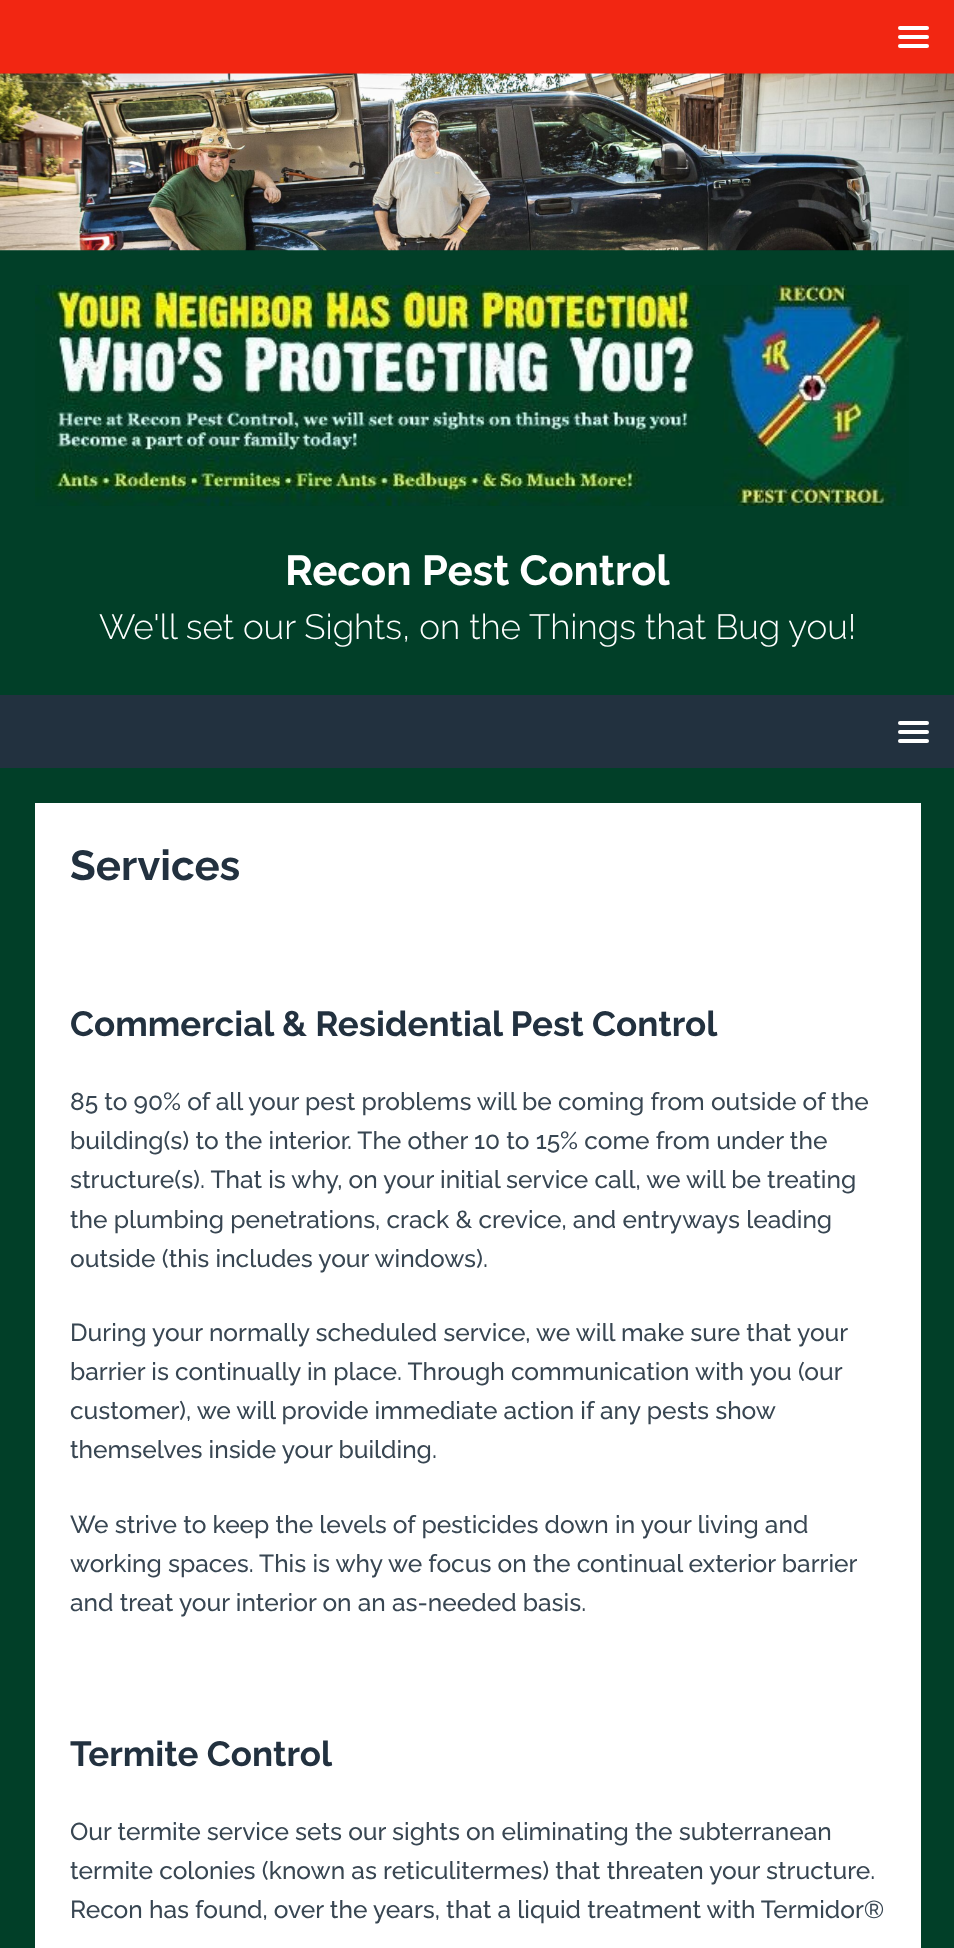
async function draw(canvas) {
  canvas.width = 954
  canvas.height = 1948
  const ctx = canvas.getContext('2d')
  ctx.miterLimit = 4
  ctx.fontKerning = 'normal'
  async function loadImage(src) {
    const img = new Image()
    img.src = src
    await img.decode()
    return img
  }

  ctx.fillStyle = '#013f28'
  ctx.fillRect(0, 0, 954, 1948)
  ctx.fillStyle = '#f22612'
  ctx.fillRect(0, 0, 954, 74)
  ctx.fillStyle = '#fff'
  ctx.beginPath()
  ctx.roundRect(898, 26, 31, 4, 2)
  ctx.fill()
  ctx.beginPath()
  ctx.roundRect(898, 35, 31, 4, 2)
  ctx.fill()
  ctx.beginPath()
  ctx.roundRect(898, 44, 31, 4, 2)
  ctx.fill()
  ctx.drawImage(await loadImage('image0.png'), 0, 73, 954, 178)
  ctx.drawImage(await loadImage('image1.png'), 35, 285, 874, 221)
  ctx.font = 'bold 42px Raleway'
  ctx.fillText('Recon Pest Control', 285, 585)
  ctx.font = '300 35px Raleway'
  ctx.fillText('We\'ll set our Sights, on the Things that Bug you!', 99, 639)
  ctx.fillStyle = '#22313f'
  ctx.fillRect(0, 695, 954, 73)
  ctx.fillStyle = '#fff'
  ctx.beginPath()
  ctx.roundRect(898, 721, 31, 4, 2)
  ctx.fill()
  ctx.beginPath()
  ctx.roundRect(898, 730, 31, 4, 2)
  ctx.fill()
  ctx.beginPath()
  ctx.roundRect(898, 739, 31, 4, 2)
  ctx.fill()
  ctx.fillRect(35, 803, 886, 1145)
  ctx.font = 'bold 42px Raleway'
  ctx.fillStyle = '#22313f'
  ctx.fillText('Services', 70, 880)
  ctx.font = 'bold 35px Raleway'
  ctx.fillText('Commercial & Residential Pest Control', 70, 1036)
  ctx.font = '500 24.5px Raleway'
  ctx.fillStyle = '#384652'
  ctx.fillText('85 to 90% of all your pest problems will be coming from outside of the', 70, 1110)
  ctx.fillText('building(s) to the interior. The other 10 to 15% come from under the', 70, 1149)
  ctx.fillText('structure(s). That is why, on your initial service call, we will be treating', 70, 1188)
  ctx.fillText('the plumbing penetrations, crack & crevice, and entryways leading', 70, 1228)
  ctx.fillText('outside (this includes your windows).', 70, 1267)
  ctx.fillText('During your normally scheduled service, we will make sure that your', 70, 1341)
  ctx.fillText('barrier is continually in place. Through communication with you (our', 70, 1380)
  ctx.fillText('customer), we will provide immediate action if any pests show', 70, 1419)
  ctx.fillText('themselves inside your building.', 70, 1458)
  ctx.fillText('We strive to keep the levels of pesticides down in your living and', 70, 1533)
  ctx.fillText('working spaces. This is why we focus on the continual exterior barrier', 70, 1572)
  ctx.fillText('and treat your interior on an as-needed basis.', 70, 1611)
  ctx.font = 'bold 35px Raleway'
  ctx.fillStyle = '#22313f'
  ctx.fillText('Termite Control', 70, 1766)
  ctx.font = '500 24.5px Raleway'
  ctx.fillStyle = '#384652'
  ctx.fillText('Our termite service sets our sights on eliminating the subterranean', 70, 1840)
  ctx.fillText('termite colonies (known as reticulitermes) that threaten your structure.', 70, 1879)
  ctx.fillText('Recon has found, over the years, that a liquid treatment with Termidor®', 70, 1918)
}

draw(document.querySelector('canvas'))
